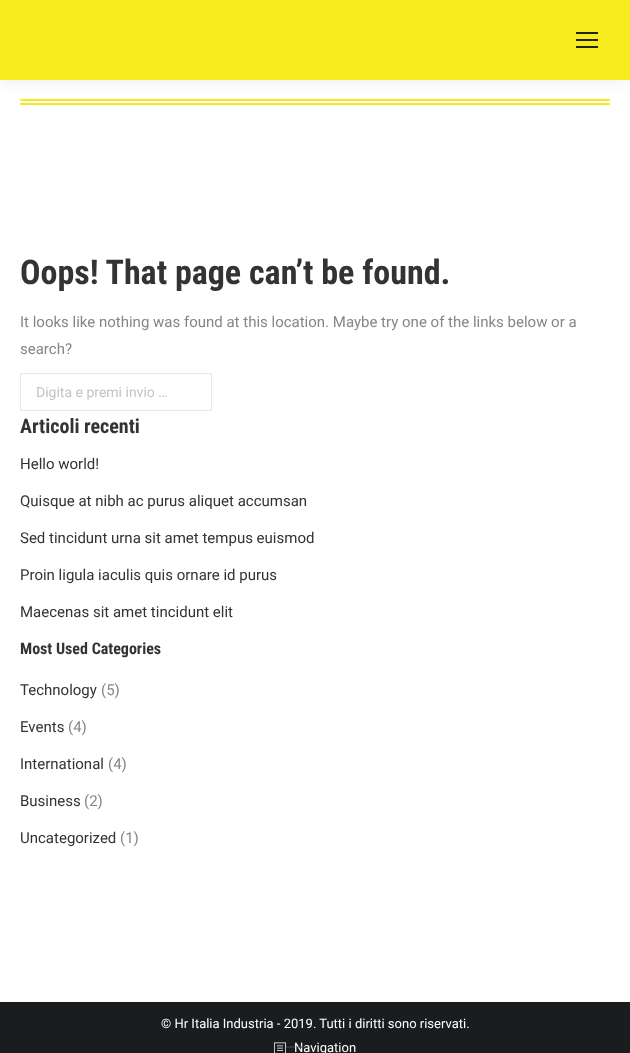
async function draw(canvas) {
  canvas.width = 630
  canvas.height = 1053
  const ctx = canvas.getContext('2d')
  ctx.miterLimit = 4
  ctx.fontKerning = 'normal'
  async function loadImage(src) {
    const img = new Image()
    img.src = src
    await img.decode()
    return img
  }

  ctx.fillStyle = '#fff'
  ctx.fillRect(0, 0, 630, 1053)
  ctx.fillStyle = '#f8eb1d'
  ctx.fillRect(20, 99, 590, 2)
  ctx.fillRect(20, 103, 590, 2)
  ctx.fillStyle = '#00000012'
  ctx.filter = 'blur(7.5px)'
  ctx.beginPath()
  ctx.rect(-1, -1, 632, 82)
  ctx.fill()
  ctx.filter = 'none'
  ctx.fillStyle = '#f8eb1d'
  ctx.fillRect(0, 0, 630, 80)
  ctx.fillStyle = '#222'
  ctx.fillRect(576, 32, 22, 2)
  ctx.fillRect(576, 39, 22, 2)
  ctx.fillRect(576, 46, 22, 2)
  ctx.font = 'bold 34px Roboto Condensed'
  ctx.fillStyle = '#333'
  ctx.fillText('Oops! That page can’t be found.', 20, 284)
  ctx.font = '15px Roboto'
  ctx.fillStyle = '#85868c'
  ctx.fillText('It looks like nothing was found at this location. Maybe try one of the links below or a', 20, 327)
  ctx.fillText('search?', 20, 354)
  ctx.strokeStyle = '#e7e7e7'
  ctx.strokeRect(20.5, 373.5, 191, 37)
  ctx.font = '14px Roboto'
  ctx.fillStyle = '#c2c3c6'
  ctx.fillText('Digita e premi invio …', 36, 397)
  ctx.font = 'bold 20px Roboto Condensed'
  ctx.fillStyle = '#333'
  ctx.fillText('Articoli recenti', 20, 433)
  ctx.font = '15px Roboto'
  ctx.fillText('Hello world!', 20, 469)
  ctx.fillText('Quisque at nibh ac purus aliquet accumsan', 20, 506)
  ctx.fillText('Sed tincidunt urna sit amet tempus euismod', 20, 543)
  ctx.fillText('Proin ligula iaculis quis ornare id purus', 20, 580)
  ctx.fillText('Maecenas sit amet tincidunt elit', 20, 617)
  ctx.font = 'bold 16px Roboto Condensed'
  ctx.fillText('Most Used Categories', 20, 654)
  ctx.font = '15px Roboto'
  ctx.fillText('Technology', 20, 695)
  ctx.fillStyle = '#85868c'
  ctx.fillText('(5)', 101, 695)
  ctx.fillStyle = '#333'
  ctx.fillText('Events', 20, 732)
  ctx.fillStyle = '#85868c'
  ctx.fillText('(4)', 68, 732)
  ctx.fillStyle = '#333'
  ctx.fillText('International', 20, 769)
  ctx.fillStyle = '#85868c'
  ctx.fillText('(4)', 108, 769)
  ctx.fillStyle = '#333'
  ctx.fillText('Business', 20, 806)
  ctx.fillStyle = '#85868c'
  ctx.fillText('(2)', 84, 806)
  ctx.fillStyle = '#333'
  ctx.fillText('Uncategorized', 20, 843)
  ctx.fillStyle = '#85868c'
  ctx.fillText('(1)', 120, 843)
  ctx.fillStyle = '#1a1c20'
  ctx.fillRect(0, 1002, 630, 51)
  ctx.font = '13px Roboto'
  ctx.fillStyle = '#fff'
  ctx.fillText('© Hr Italia Industria - 2019. Tutti i diritti sono riservati.', 161, 1028)
  ctx.drawImage(await loadImage('image0.png'), 274, 1042, 12, 11)
  ctx.fillText('Navigation', 294, 1052)
  ctx.font = '14px Roboto'
  ctx.fillStyle = '#4a4c4f'
  ctx.fillText('——', 285, 1052)
}

draw(document.querySelector('canvas'))
